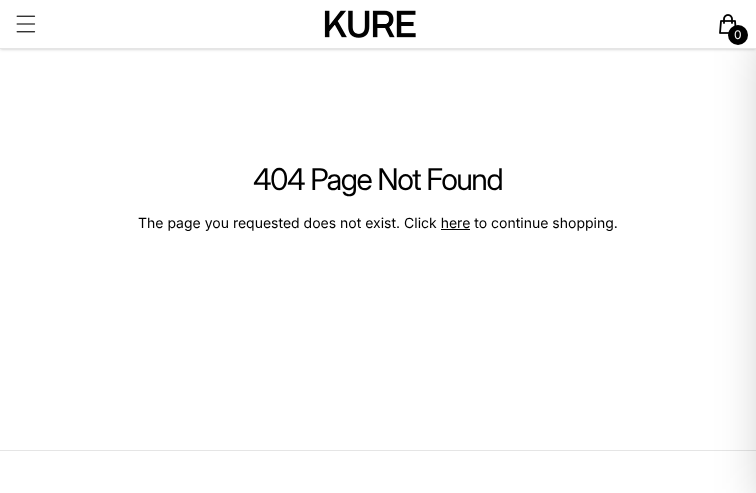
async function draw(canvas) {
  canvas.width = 756
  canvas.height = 493
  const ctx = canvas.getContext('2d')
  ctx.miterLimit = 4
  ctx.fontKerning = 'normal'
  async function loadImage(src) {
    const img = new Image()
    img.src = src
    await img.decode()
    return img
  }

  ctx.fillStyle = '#fff'
  ctx.fillRect(0, 0, 756, 493)
  ctx.fillStyle = '#e5e5e5'
  ctx.fillRect(0, 450, 756, 1)
  ctx.fillStyle = '#00000040'
  ctx.filter = 'blur(25px)'
  ctx.beginPath()
  ctx.rect(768, 37, 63, 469)
  ctx.fill()
  ctx.filter = 'none'
  ctx.fillStyle = '#0000001a'
  ctx.filter = 'blur(1px)'
  ctx.beginPath()
  ctx.rect(1, 2, 754, 47)
  ctx.fill()
  ctx.filter = 'none'
  ctx.filter = 'blur(1.5px)'
  ctx.beginPath()
  ctx.rect(0, 1, 756, 49)
  ctx.fill()
  ctx.filter = 'none'
  ctx.fillStyle = '#fff'
  ctx.fillRect(0, 0, 756, 48)
  ctx.fillStyle = '#e5e5e5'
  ctx.fillRect(0, 48, 756, 1)
  ctx.drawImage(await loadImage('image0.png'), 16, 15, 20, 18)
  ctx.drawImage(await loadImage('image1.png'), 324, 10, 92, 28)
  ctx.drawImage(await loadImage('image2.png'), 719, 14, 18, 20)
  ctx.fillStyle = '#000'
  ctx.beginPath()
  ctx.arc(738, 35, 10, 0, 2 * Math.PI)
  ctx.fill()
  ctx.font = '12px "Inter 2"'
  ctx.fillStyle = '#fff'
  ctx.fillText('0', 734, 39)
  ctx.letterSpacing = '-1.5px'
  ctx.font = '30px Inter'
  ctx.fillStyle = '#000'
  ctx.fillText('404 Page Not Found', 253, 190)
  ctx.letterSpacing = '0px'
  ctx.font = '14px "Inter 2"'
  ctx.fillText('The page you requested does not exist. Click here to continue shopping.', 138, 228)
  ctx.fillRect(441, 229, 29, 1)
}

draw(document.querySelector('canvas'))
